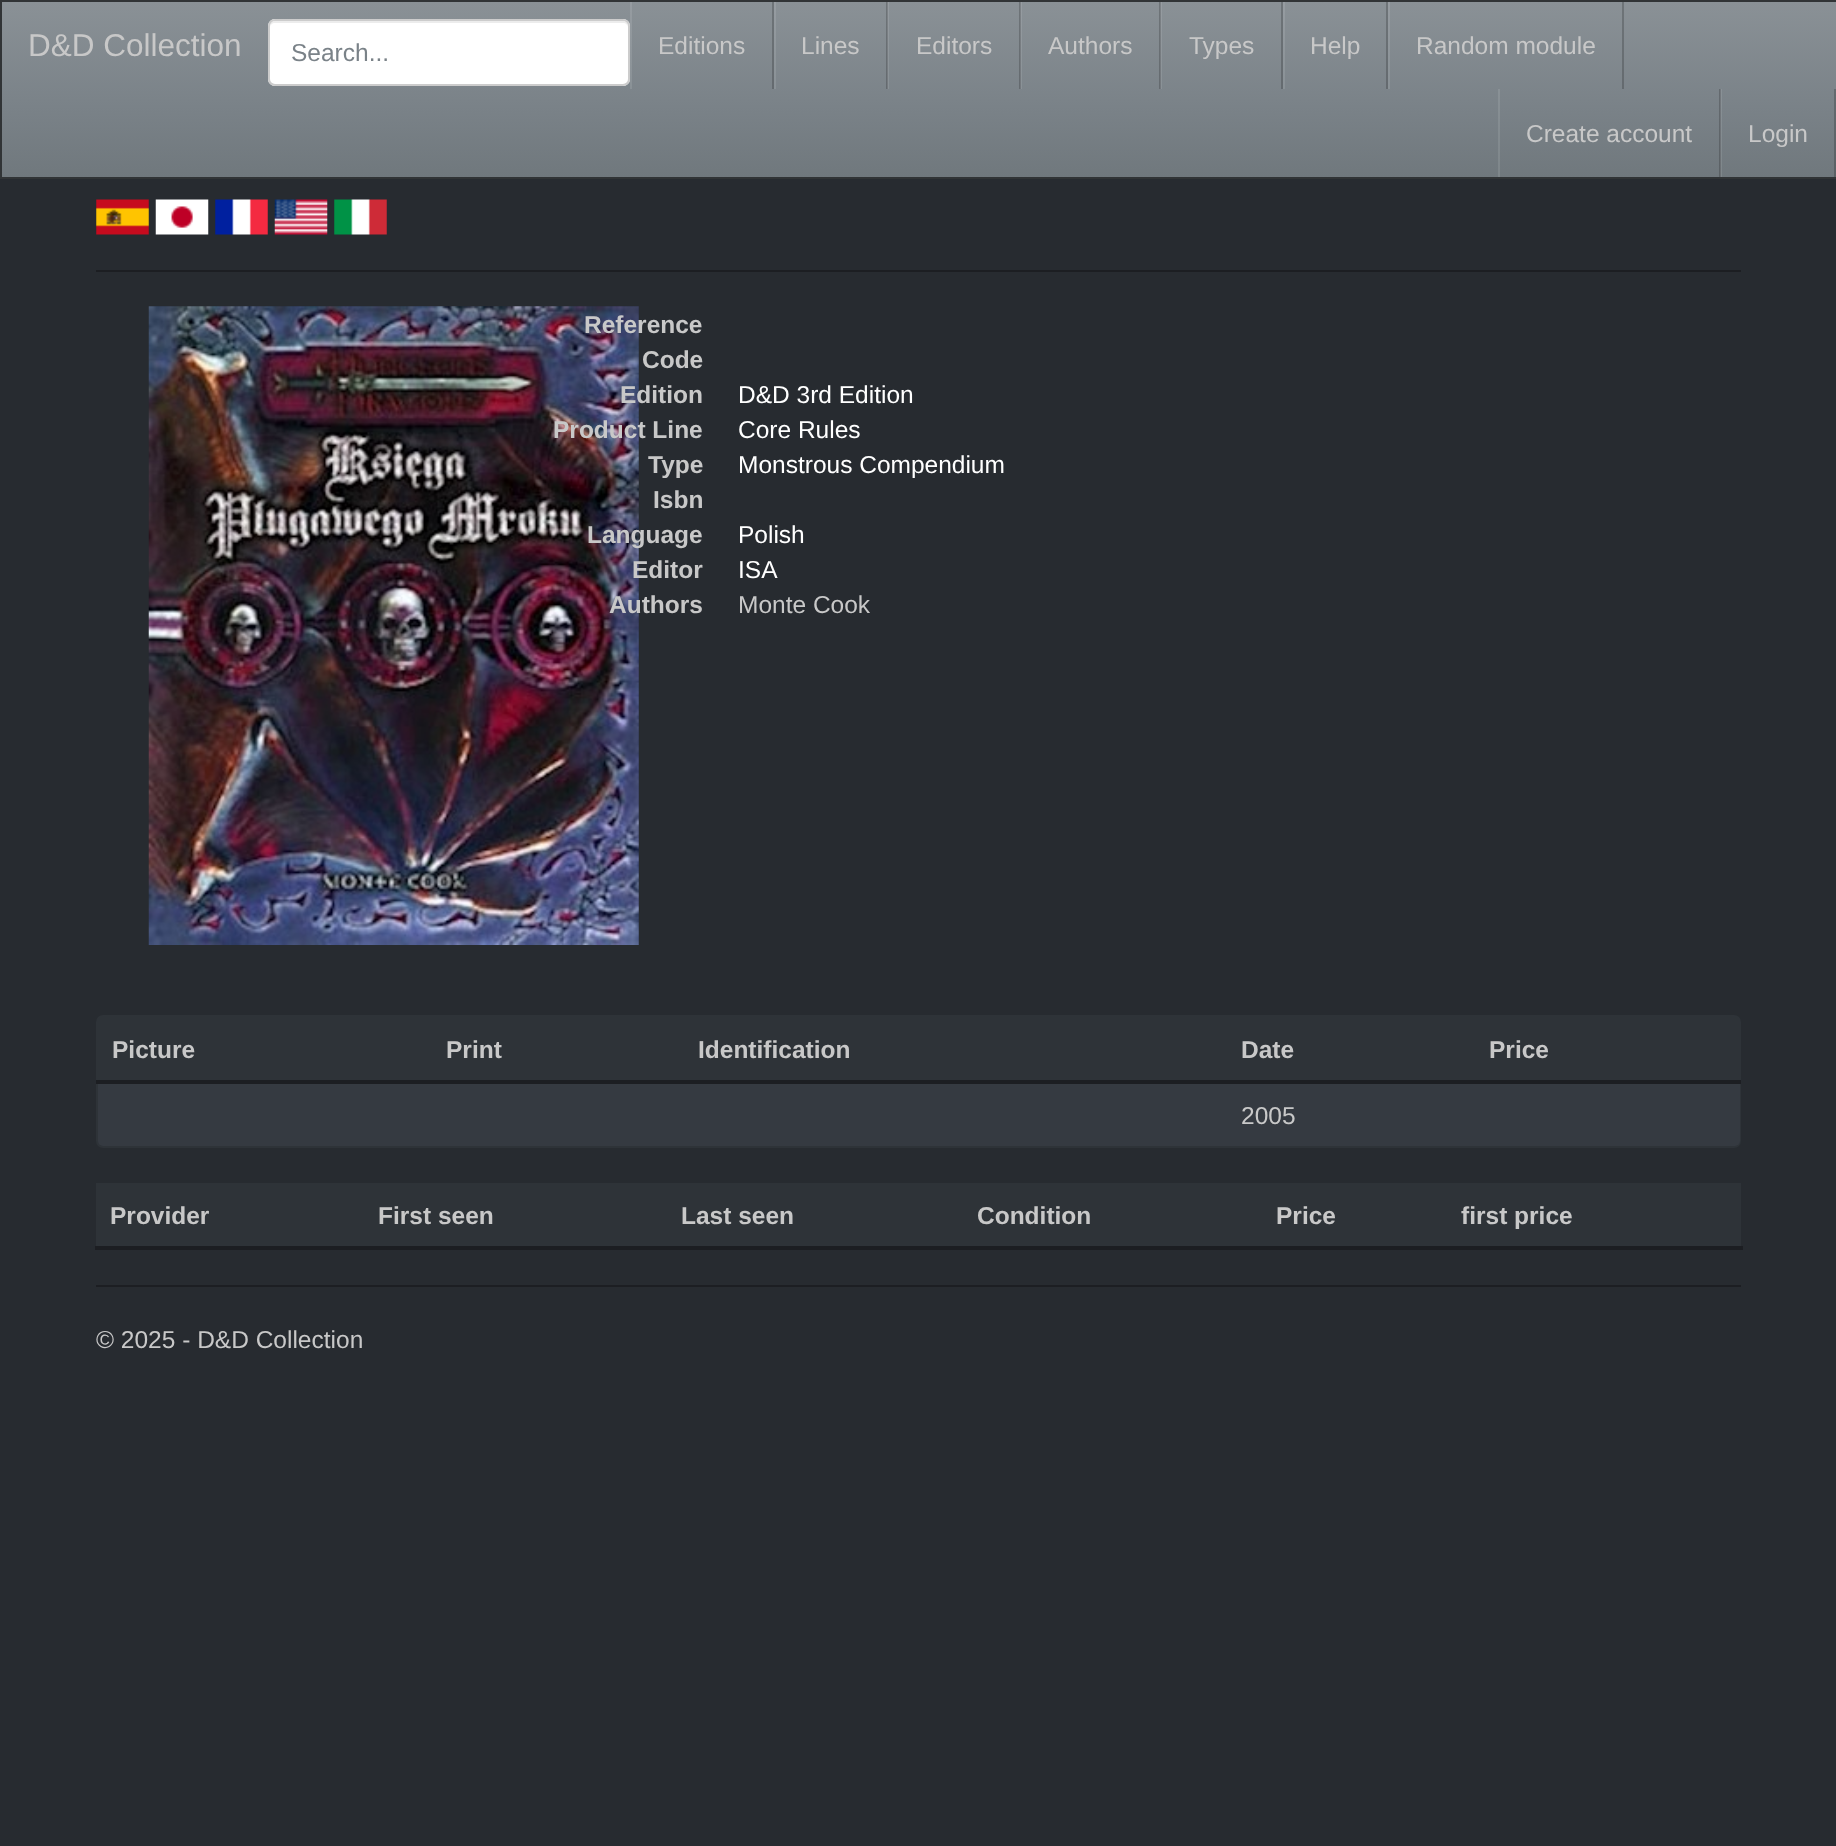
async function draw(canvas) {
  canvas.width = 1836
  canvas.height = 1846
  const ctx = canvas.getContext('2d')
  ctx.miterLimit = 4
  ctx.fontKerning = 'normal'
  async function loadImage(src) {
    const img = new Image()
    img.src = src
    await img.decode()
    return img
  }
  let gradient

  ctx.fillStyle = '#272b30'
  ctx.fillRect(0, 0, 1836, 1846)
  gradient = ctx.createLinearGradient(919, 1.7, 919, 177)
  gradient.addColorStop(0, '#8a9196')
  gradient.addColorStop(0.6, '#7a8288')
  gradient.addColorStop(1, '#70787d')
  ctx.fillStyle = gradient
  ctx.fillRect(2, 2, 1834, 175)
  gradient = ctx.createLinearGradient(919, 1.7, 919, 177)
  gradient.addColorStop(0, '#969ca1')
  gradient.addColorStop(0.6, '#878f94')
  gradient.addColorStop(1, '#7e868a')
  ctx.fillStyle = gradient
  ctx.fillRect(1721, 89, 1, 88)
  gradient = ctx.createLinearGradient(919, 1.7, 919, 177)
  gradient.addColorStop(0, '#6e7478')
  gradient.addColorStop(0.6, '#62686d')
  gradient.addColorStop(1, '#5a6064')
  ctx.fillStyle = gradient
  ctx.fillRect(1834, 89, 2, 88)
  gradient = ctx.createLinearGradient(919, 1.7, 919, 177)
  gradient.addColorStop(0, '#969ca1')
  gradient.addColorStop(0.6, '#878f94')
  gradient.addColorStop(1, '#7e868a')
  ctx.fillStyle = gradient
  ctx.fillRect(1498, 89, 2, 88)
  gradient = ctx.createLinearGradient(919, 1.7, 919, 177)
  gradient.addColorStop(0, '#6e7478')
  gradient.addColorStop(0.6, '#62686d')
  gradient.addColorStop(1, '#5a6064')
  ctx.fillStyle = gradient
  ctx.fillRect(1719, 89, 1, 88)
  gradient = ctx.createLinearGradient(919, 1.7, 919, 177)
  gradient.addColorStop(0, '#7d8286')
  gradient.addColorStop(0.6, '#72777c')
  gradient.addColorStop(1, '#6b7074')
  ctx.fillStyle = gradient
  ctx.fillRect(1720, 89, 1, 88)
  gradient = ctx.createLinearGradient(919, 1.7, 919, 177)
  gradient.addColorStop(0, '#969ca1')
  gradient.addColorStop(0.6, '#878f94')
  gradient.addColorStop(1, '#7e868a')
  ctx.fillStyle = gradient
  ctx.fillRect(1388, 2, 2, 87)
  gradient = ctx.createLinearGradient(919, 1.7, 919, 177)
  gradient.addColorStop(0, '#6e7478')
  gradient.addColorStop(0.6, '#62686d')
  gradient.addColorStop(1, '#5a6064')
  ctx.fillStyle = gradient
  ctx.fillRect(1622, 2, 2, 87)
  gradient = ctx.createLinearGradient(919, 1.7, 919, 177)
  gradient.addColorStop(0, '#969ca1')
  gradient.addColorStop(0.6, '#878f94')
  gradient.addColorStop(1, '#7e868a')
  ctx.fillStyle = gradient
  ctx.fillRect(1283, 2, 2, 87)
  gradient = ctx.createLinearGradient(919, 1.7, 919, 177)
  gradient.addColorStop(0, '#6e7478')
  gradient.addColorStop(0.6, '#62686d')
  gradient.addColorStop(1, '#5a6064')
  ctx.fillStyle = gradient
  ctx.fillRect(1386, 2, 2, 87)
  gradient = ctx.createLinearGradient(919, 1.7, 919, 177)
  gradient.addColorStop(0, '#969ca1')
  gradient.addColorStop(0.6, '#878f94')
  gradient.addColorStop(1, '#7e868a')
  ctx.fillStyle = gradient
  ctx.fillRect(1161, 2, 1, 87)
  gradient = ctx.createLinearGradient(919, 1.7, 919, 177)
  gradient.addColorStop(0, '#6e7478')
  gradient.addColorStop(0.6, '#62686d')
  gradient.addColorStop(1, '#5a6064')
  ctx.fillStyle = gradient
  ctx.fillRect(1281, 2, 2, 87)
  gradient = ctx.createLinearGradient(919, 1.7, 919, 177)
  gradient.addColorStop(0, '#969ca1')
  gradient.addColorStop(0.6, '#878f94')
  gradient.addColorStop(1, '#7e868a')
  ctx.fillStyle = gradient
  ctx.fillRect(1021, 2, 1, 87)
  gradient = ctx.createLinearGradient(919, 1.7, 919, 177)
  gradient.addColorStop(0, '#6e7478')
  gradient.addColorStop(0.6, '#62686d')
  gradient.addColorStop(1, '#5a6064')
  ctx.fillStyle = gradient
  ctx.fillRect(1159, 2, 1, 87)
  gradient = ctx.createLinearGradient(919, 1.7, 919, 177)
  gradient.addColorStop(0, '#7d8286')
  gradient.addColorStop(0.6, '#72777c')
  gradient.addColorStop(1, '#6b7074')
  ctx.fillStyle = gradient
  ctx.fillRect(1160, 2, 1, 87)
  gradient = ctx.createLinearGradient(919, 1.7, 919, 177)
  gradient.addColorStop(0, '#969ca1')
  gradient.addColorStop(0.6, '#878f94')
  gradient.addColorStop(1, '#7e868a')
  ctx.fillStyle = gradient
  ctx.fillRect(888, 2, 1, 87)
  gradient = ctx.createLinearGradient(919, 1.7, 919, 177)
  gradient.addColorStop(0, '#6e7478')
  gradient.addColorStop(0.6, '#62686d')
  gradient.addColorStop(1, '#5a6064')
  ctx.fillStyle = gradient
  ctx.fillRect(1019, 2, 1, 87)
  gradient = ctx.createLinearGradient(919, 1.7, 919, 177)
  gradient.addColorStop(0, '#7d8286')
  gradient.addColorStop(0.6, '#72777c')
  gradient.addColorStop(1, '#6b7074')
  ctx.fillStyle = gradient
  ctx.fillRect(1020, 2, 1, 87)
  gradient = ctx.createLinearGradient(919, 1.7, 919, 177)
  gradient.addColorStop(0, '#969ca1')
  gradient.addColorStop(0.6, '#878f94')
  gradient.addColorStop(1, '#7e868a')
  ctx.fillStyle = gradient
  ctx.fillRect(774, 2, 2, 87)
  gradient = ctx.createLinearGradient(919, 1.7, 919, 177)
  gradient.addColorStop(0, '#6e7478')
  gradient.addColorStop(0.6, '#62686d')
  gradient.addColorStop(1, '#5a6064')
  ctx.fillStyle = gradient
  ctx.fillRect(886, 2, 1, 87)
  gradient = ctx.createLinearGradient(919, 1.7, 919, 177)
  gradient.addColorStop(0, '#7d8286')
  gradient.addColorStop(0.6, '#72777c')
  gradient.addColorStop(1, '#6b7074')
  ctx.fillStyle = gradient
  ctx.fillRect(887, 2, 1, 87)
  gradient = ctx.createLinearGradient(919, 1.7, 919, 177)
  gradient.addColorStop(0, '#969ca1')
  gradient.addColorStop(0.6, '#878f94')
  gradient.addColorStop(1, '#7e868a')
  ctx.fillStyle = gradient
  ctx.fillRect(630, 2, 2, 87)
  gradient = ctx.createLinearGradient(919, 1.7, 919, 177)
  gradient.addColorStop(0, '#6e7478')
  gradient.addColorStop(0.6, '#62686d')
  gradient.addColorStop(1, '#5a6064')
  ctx.fillStyle = gradient
  ctx.fillRect(772, 2, 2, 87)
  ctx.strokeStyle = '#313436'
  ctx.lineWidth = 2
  ctx.strokeRect(1, 1, 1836, 177)
  ctx.font = '31.5px Liberation Sans'
  ctx.fillStyle = '#c8c8c8'
  ctx.fillText('D&D Collection', 28, 56)
  ctx.fillStyle = '#fff'
  ctx.beginPath()
  ctx.roundRect(268, 19, 362, 67, 7)
  ctx.fill()
  ctx.fillStyle = '#ececec'
  ctx.beginPath()
  ctx.moveTo(275, 23)
  ctx.lineTo(623, 23)
  ctx.bezierCurveTo(626, 23, 628, 25, 628, 28)
  ctx.bezierCurveTo(628, 25, 627, 21, 623, 21)
  ctx.lineTo(275, 21)
  ctx.bezierCurveTo(271, 21, 270, 25, 270, 28)
  ctx.bezierCurveTo(270, 25, 272, 23, 275, 23)
  ctx.closePath()
  ctx.fill()
  ctx.beginPath()
  ctx.roundRect(269, 20, 360, 65, 6)
  ctx.strokeStyle = '#ccc'
  ctx.stroke()
  ctx.font = '24.5px Liberation Sans'
  ctx.fillStyle = '#7a8288'
  ctx.fillText('Search...', 291, 61)
  ctx.fillStyle = '#c8c8c8'
  ctx.fillText('Editions', 658, 54)
  ctx.fillText('Lines', 801, 54)
  ctx.fillText('Editors', 916, 54)
  ctx.fillText('Authors', 1048, 54)
  ctx.fillText('Types', 1189, 54)
  ctx.fillText('Help', 1310, 54)
  ctx.fillText('Random module', 1416, 54)
  ctx.fillText('Create account', 1526, 142)
  ctx.fillText('Login', 1748, 142)
  ctx.drawImage(await loadImage('image0.png'), 96, 199, 53, 36)
  ctx.drawImage(await loadImage('image1.png'), 155, 199, 54, 36)
  ctx.drawImage(await loadImage('image2.png'), 215, 199, 53, 36)
  ctx.drawImage(await loadImage('image3.png'), 274, 199, 54, 36)
  ctx.drawImage(await loadImage('image4.png'), 334, 199, 53, 36)
  ctx.fillStyle = '#1c1e22'
  ctx.fillRect(96, 270, 1645, 2)
  ctx.drawImage(await loadImage('image5.png'), 148, 306, 491, 639)
  ctx.font = 'bold 24.5px Liberation Sans'
  ctx.fillStyle = '#c8c8c8'
  ctx.fillText('Reference', 584, 333)
  ctx.fillText('Code', 642, 368)
  ctx.fillText('Edition', 620, 403)
  ctx.font = '24.5px Liberation Sans'
  ctx.fillStyle = '#fff'
  ctx.fillText('D&D 3rd Edition', 738, 403)
  ctx.font = 'bold 24.5px Liberation Sans'
  ctx.fillStyle = '#c8c8c8'
  ctx.fillText('Product Line', 553, 438)
  ctx.font = '24.5px Liberation Sans'
  ctx.fillStyle = '#fff'
  ctx.fillText('Core Rules', 738, 438)
  ctx.font = 'bold 24.5px Liberation Sans'
  ctx.fillStyle = '#c8c8c8'
  ctx.fillText('Type', 648, 473)
  ctx.font = '24.5px Liberation Sans'
  ctx.fillStyle = '#fff'
  ctx.fillText('Monstrous Compendium', 738, 473)
  ctx.font = 'bold 24.5px Liberation Sans'
  ctx.fillStyle = '#c8c8c8'
  ctx.fillText('Isbn', 653, 508)
  ctx.fillText('Language', 587, 543)
  ctx.font = '24.5px Liberation Sans'
  ctx.fillStyle = '#fff'
  ctx.fillText('Polish', 738, 543)
  ctx.font = 'bold 24.5px Liberation Sans'
  ctx.fillStyle = '#c8c8c8'
  ctx.fillText('Editor', 632, 578)
  ctx.font = '24.5px Liberation Sans'
  ctx.fillStyle = '#fff'
  ctx.fillText('ISA', 738, 578)
  ctx.font = 'bold 24.5px Liberation Sans'
  ctx.fillStyle = '#c8c8c8'
  ctx.fillText('Authors', 609, 613)
  ctx.font = '24.5px Liberation Sans'
  ctx.fillText('Monte Cook', 738, 613)
  ctx.fillStyle = '#2e3338'
  ctx.beginPath()
  ctx.roundRect(96, 1015, 1645, 133, 7)
  ctx.fill()
  ctx.font = 'bold 24.5px Liberation Sans'
  ctx.fillStyle = '#c8c8c8'
  ctx.fillText('Picture', 112, 1058)
  ctx.fillText('Print', 446, 1058)
  ctx.fillText('Identification', 698, 1058)
  ctx.fillText('Date', 1241, 1058)
  ctx.fillStyle = '#353a41'
  ctx.beginPath()
  ctx.roundRect(98, 1082, 1642, 64, [0, 0, 5, 5])
  ctx.fill()
  ctx.fillStyle = '#1c1e22'
  ctx.fillRect(96, 1080, 1645, 4)
  ctx.fillStyle = '#c8c8c8'
  ctx.fillText('Price', 1489, 1058)
  ctx.font = '24.5px Liberation Sans'
  ctx.fillText('2005', 1241, 1124)
  ctx.fillStyle = '#2e3338'
  ctx.fillRect(96, 1183, 1645, 63)
  ctx.font = 'bold 24.5px Liberation Sans'
  ctx.fillStyle = '#c8c8c8'
  ctx.fillText('Provider', 110, 1224)
  ctx.fillText('First seen', 378, 1224)
  ctx.fillText('Last seen', 681, 1224)
  ctx.fillText('Condition', 977, 1224)
  ctx.fillText('Price', 1276, 1224)
  ctx.fillStyle = '#1c1e22'
  ctx.fillRect(95, 1246, 1648, 4)
  ctx.fillStyle = '#c8c8c8'
  ctx.fillText('first price', 1461, 1224)
  ctx.fillStyle = '#1c1e22'
  ctx.fillRect(96, 1285, 1645, 2)
  ctx.font = '24.5px Liberation Sans'
  ctx.fillStyle = '#c8c8c8'
  ctx.fillText('© 2025 - D&D Collection', 96, 1348)
}

draw(document.querySelector('canvas'))
